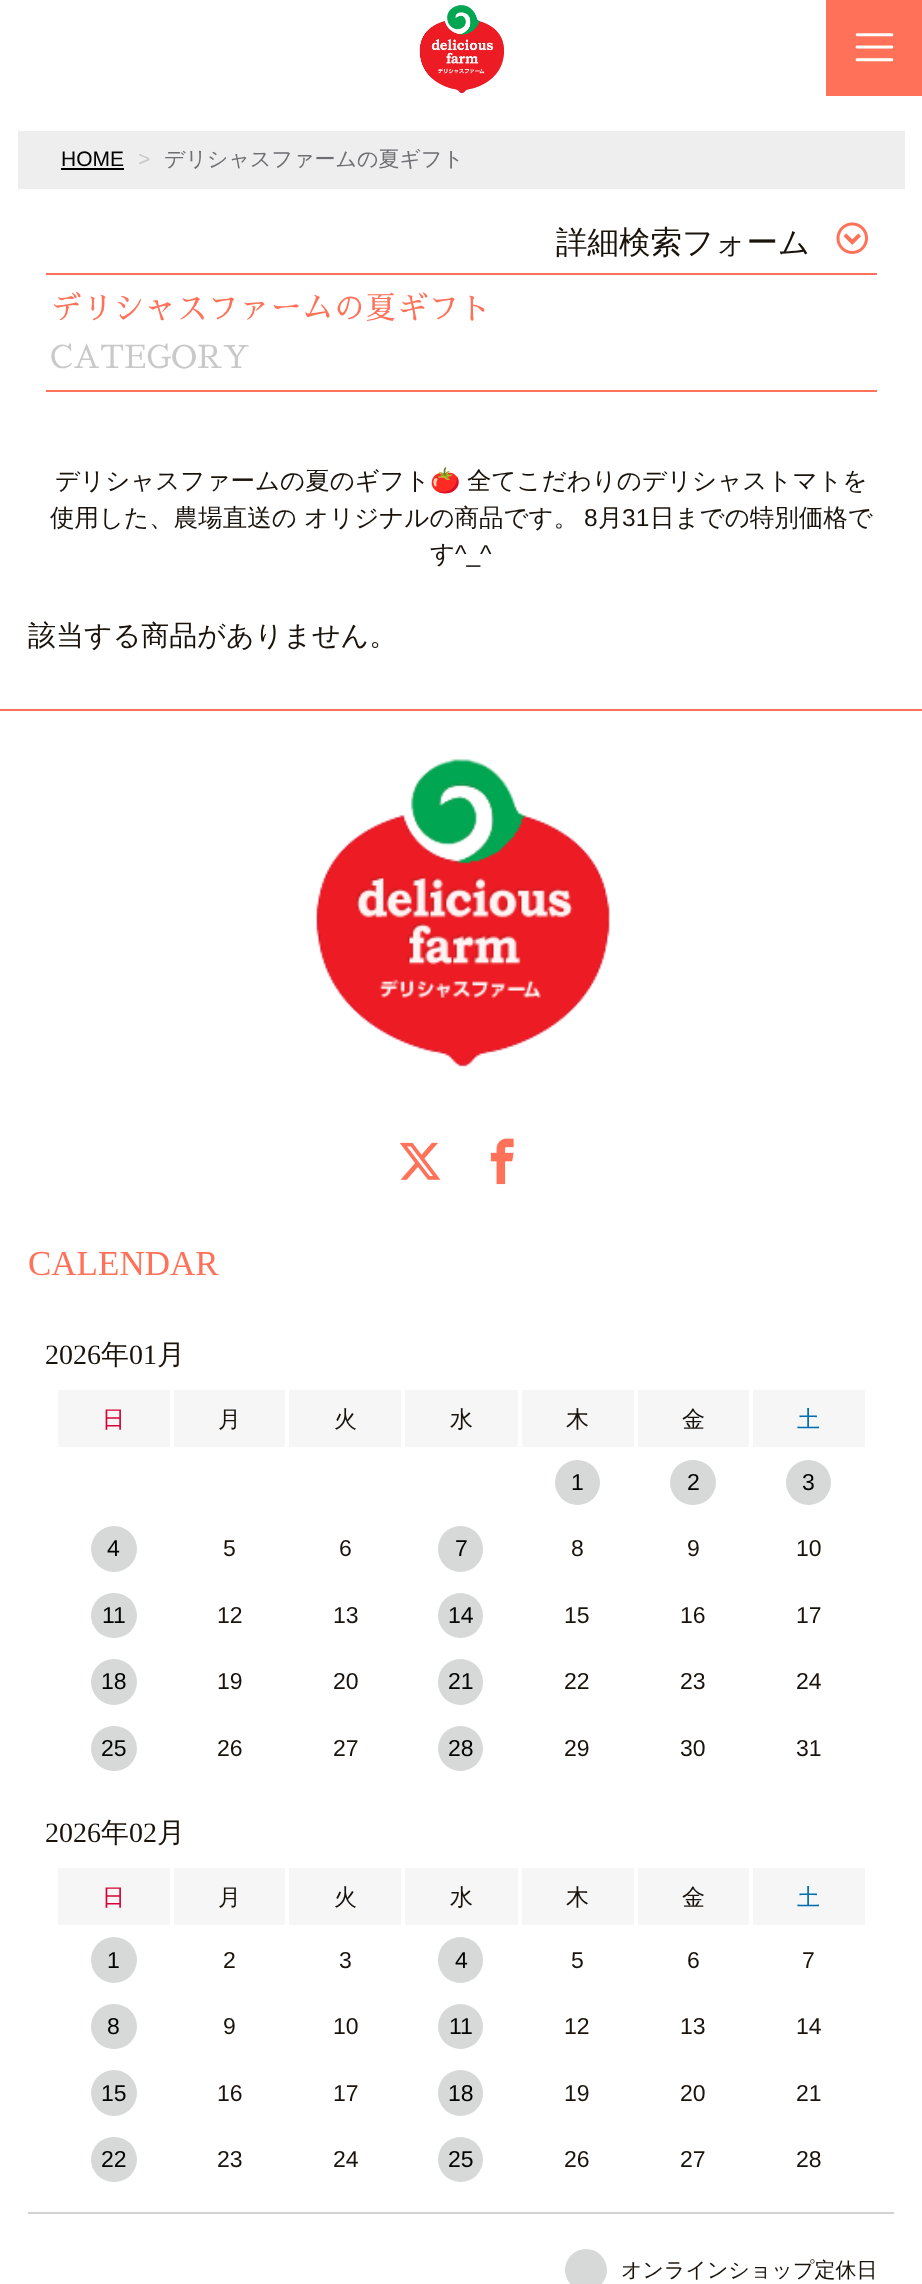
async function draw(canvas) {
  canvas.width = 922
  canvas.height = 2284
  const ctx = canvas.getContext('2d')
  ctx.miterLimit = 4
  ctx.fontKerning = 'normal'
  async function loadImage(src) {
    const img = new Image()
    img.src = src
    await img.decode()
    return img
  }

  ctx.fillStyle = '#fff'
  ctx.fillRect(0, 0, 922, 2284)
  ctx.drawImage(await loadImage('image0.png'), 419, 5, 85, 88)
  ctx.fillStyle = '#ff7259'
  ctx.fillRect(826, 0, 96, 96)
  ctx.drawImage(await loadImage('image1.png'), 855, 33, 39, 29)
  ctx.fillStyle = '#eee'
  ctx.fillRect(18, 131, 887, 58)
  ctx.font = '21px Liberation Sans'
  ctx.fillStyle = '#000'
  ctx.fillText('HOME', 61, 166)
  ctx.fillRect(61, 168, 63, 2)
  ctx.fillStyle = '#c9c9c9'
  ctx.fillText('>', 138, 166)
  ctx.font = '500 21px WenQuanYi Zen Hei'
  ctx.fillStyle = '#6d6d72'
  ctx.fillText('デリシャスファームの夏ギフト', 164, 166)
  ctx.font = '500 31.5px WenQuanYi Zen Hei'
  ctx.fillStyle = '#1a130c'
  ctx.fillText('詳細検索フォーム', 556, 253)
  ctx.drawImage(await loadImage('image2.png'), 836, 222, 32, 32)
  ctx.fillStyle = '#ff7259'
  ctx.fillRect(46, 273, 831, 2)
  ctx.fillRect(46, 390, 831, 2)
  ctx.font = '31.5px Sawarabi Mincho'
  ctx.fillText('デリシャスファームの夏ギフト', 50, 319)
  ctx.fillStyle = '#c9c9c9'
  ctx.fillText('CATEGORY', 50, 368)
  ctx.font = '500 24.5px WenQuanYi Zen Hei'
  ctx.fillStyle = '#1a130c'
  ctx.fillText('デリシャスファームの夏のギフト', 55, 489)
  ctx.font = '24.5px Noto Color Emoji'
  ctx.fillText('🍅', 430, 489)
  ctx.font = '500 24.5px WenQuanYi Zen Hei'
  ctx.fillText('全てこだわりのデリシャストマトを', 467, 489)
  ctx.fillText('使用した、農場直送の オリジナルの商品です。', 50, 526)
  ctx.font = '24.5px Liberation Sans'
  ctx.fillText('8', 584, 526)
  ctx.font = '500 24.5px WenQuanYi Zen Hei'
  ctx.fillText('月', 598, 526)
  ctx.font = '24.5px Liberation Sans'
  ctx.fillText('31', 622, 526)
  ctx.font = '500 24.5px WenQuanYi Zen Hei'
  ctx.fillText('日までの特別価格で', 650, 526)
  ctx.fillText('す', 430, 562)
  ctx.font = '24.5px Liberation Sans'
  ctx.fillText('^_^', 455, 562)
  ctx.font = '500 28px WenQuanYi Zen Hei'
  ctx.fillText('該当する商品がありません。', 28, 645)
  ctx.fillStyle = '#ff7259'
  ctx.fillRect(0, 709, 922, 2)
  ctx.drawImage(await loadImage('image3.png'), 316, 759, 294, 308)
  ctx.drawImage(await loadImage('image4.png'), 399, 1142, 42, 38)
  ctx.drawImage(await loadImage('image5.png'), 490, 1138, 24, 47)
  ctx.font = '35px Liberation Serif'
  ctx.fillText('CALENDAR', 28, 1275)
  ctx.font = '28px Liberation Serif'
  ctx.fillStyle = '#1a130c'
  ctx.fillText('2026', 45, 1364)
  ctx.font = '500 28px WenQuanYi Zen Hei'
  ctx.fillText('年', 101, 1364)
  ctx.font = '28px Liberation Serif'
  ctx.fillText('01', 129, 1364)
  ctx.font = '500 28px WenQuanYi Zen Hei'
  ctx.fillText('月', 157, 1364)
  ctx.fillStyle = '#f6f6f7'
  ctx.fillRect(58, 1390, 112, 57)
  ctx.font = '500 23px WenQuanYi Zen Hei'
  ctx.fillStyle = '#d70035'
  ctx.fillText('日', 102, 1427)
  ctx.fillStyle = '#f6f6f7'
  ctx.fillRect(174, 1390, 111, 57)
  ctx.fillStyle = '#1a130c'
  ctx.fillText('月', 218, 1427)
  ctx.fillStyle = '#f6f6f7'
  ctx.fillRect(289, 1390, 112, 57)
  ctx.fillStyle = '#1a130c'
  ctx.fillText('火', 334, 1427)
  ctx.fillStyle = '#f6f6f7'
  ctx.fillRect(405, 1390, 113, 57)
  ctx.fillStyle = '#1a130c'
  ctx.fillText('水', 450, 1427)
  ctx.fillStyle = '#f6f6f7'
  ctx.fillRect(522, 1390, 112, 57)
  ctx.fillStyle = '#1a130c'
  ctx.fillText('木', 566, 1427)
  ctx.fillStyle = '#f6f6f7'
  ctx.fillRect(638, 1390, 111, 57)
  ctx.fillStyle = '#1a130c'
  ctx.fillText('金', 682, 1427)
  ctx.fillStyle = '#f6f6f7'
  ctx.fillRect(753, 1390, 112, 57)
  ctx.fillStyle = '#006eb0'
  ctx.fillText('土', 797, 1427)
  ctx.fillStyle = '#d7d8d8'
  ctx.beginPath()
  ctx.arc(577.5, 1482.5, 22.5, 0, 2 * Math.PI)
  ctx.fill()
  ctx.font = '23px Liberation Sans'
  ctx.fillStyle = '#000'
  ctx.fillText('1', 571, 1490)
  ctx.fillStyle = '#d7d8d8'
  ctx.beginPath()
  ctx.roundRect(670, 1460, 46, 45, 22.5)
  ctx.fill()
  ctx.fillStyle = '#000'
  ctx.fillText('2', 687, 1490)
  ctx.fillStyle = '#d7d8d8'
  ctx.beginPath()
  ctx.arc(808.5, 1482.5, 22.5, 0, 2 * Math.PI)
  ctx.fill()
  ctx.fillStyle = '#000'
  ctx.fillText('3', 802, 1490)
  ctx.fillStyle = '#d7d8d8'
  ctx.beginPath()
  ctx.arc(114, 1549, 23, 0, 2 * Math.PI)
  ctx.fill()
  ctx.fillStyle = '#000'
  ctx.fillText('4', 107, 1556)
  ctx.fillStyle = '#1a130c'
  ctx.fillText('5', 223, 1556)
  ctx.fillText('6', 339, 1556)
  ctx.fillStyle = '#d7d8d8'
  ctx.beginPath()
  ctx.roundRect(438, 1526, 45, 46, 22.5)
  ctx.fill()
  ctx.fillStyle = '#000'
  ctx.fillText('7', 455, 1556)
  ctx.fillStyle = '#1a130c'
  ctx.fillText('8', 571, 1556)
  ctx.fillText('9', 687, 1556)
  ctx.fillText('10', 796, 1556)
  ctx.fillStyle = '#d7d8d8'
  ctx.beginPath()
  ctx.roundRect(91, 1593, 46, 45, 22.5)
  ctx.fill()
  ctx.fillStyle = '#000'
  ctx.fillText('11', 102, 1623)
  ctx.fillStyle = '#1a130c'
  ctx.fillText('12', 217, 1623)
  ctx.fillText('13', 333, 1623)
  ctx.fillStyle = '#d7d8d8'
  ctx.beginPath()
  ctx.arc(460.5, 1615.5, 22.5, 0, 2 * Math.PI)
  ctx.fill()
  ctx.fillStyle = '#000'
  ctx.fillText('14', 448, 1623)
  ctx.fillStyle = '#1a130c'
  ctx.fillText('15', 564, 1623)
  ctx.fillText('16', 680, 1623)
  ctx.fillText('17', 796, 1623)
  ctx.fillStyle = '#d7d8d8'
  ctx.beginPath()
  ctx.arc(114, 1682, 23, 0, 2 * Math.PI)
  ctx.fill()
  ctx.fillStyle = '#000'
  ctx.fillText('18', 101, 1689)
  ctx.fillStyle = '#1a130c'
  ctx.fillText('19', 217, 1689)
  ctx.fillText('20', 333, 1689)
  ctx.fillStyle = '#d7d8d8'
  ctx.beginPath()
  ctx.roundRect(438, 1659, 45, 46, 22.5)
  ctx.fill()
  ctx.fillStyle = '#000'
  ctx.fillText('21', 448, 1689)
  ctx.fillStyle = '#1a130c'
  ctx.fillText('22', 564, 1689)
  ctx.fillText('23', 680, 1689)
  ctx.fillText('24', 796, 1689)
  ctx.fillStyle = '#d7d8d8'
  ctx.beginPath()
  ctx.roundRect(91, 1726, 46, 45, 22.5)
  ctx.fill()
  ctx.fillStyle = '#000'
  ctx.fillText('25', 101, 1756)
  ctx.fillStyle = '#1a130c'
  ctx.fillText('26', 217, 1756)
  ctx.fillText('27', 333, 1756)
  ctx.fillStyle = '#d7d8d8'
  ctx.beginPath()
  ctx.arc(460.5, 1748.5, 22.5, 0, 2 * Math.PI)
  ctx.fill()
  ctx.fillStyle = '#000'
  ctx.fillText('28', 448, 1756)
  ctx.fillStyle = '#1a130c'
  ctx.fillText('29', 564, 1756)
  ctx.fillText('30', 680, 1756)
  ctx.fillText('31', 796, 1756)
  ctx.font = '28px Liberation Serif'
  ctx.fillText('2026', 45, 1842)
  ctx.font = '500 28px WenQuanYi Zen Hei'
  ctx.fillText('年', 101, 1842)
  ctx.font = '28px Liberation Serif'
  ctx.fillText('02', 129, 1842)
  ctx.font = '500 28px WenQuanYi Zen Hei'
  ctx.fillText('月', 157, 1842)
  ctx.fillStyle = '#f6f6f7'
  ctx.fillRect(58, 1868, 112, 57)
  ctx.font = '500 23px WenQuanYi Zen Hei'
  ctx.fillStyle = '#d70035'
  ctx.fillText('日', 102, 1905)
  ctx.fillStyle = '#f6f6f7'
  ctx.fillRect(174, 1868, 111, 57)
  ctx.fillStyle = '#1a130c'
  ctx.fillText('月', 218, 1905)
  ctx.fillStyle = '#f6f6f7'
  ctx.fillRect(289, 1868, 112, 57)
  ctx.fillStyle = '#1a130c'
  ctx.fillText('火', 334, 1905)
  ctx.fillStyle = '#f6f6f7'
  ctx.fillRect(405, 1868, 113, 57)
  ctx.fillStyle = '#1a130c'
  ctx.fillText('水', 450, 1905)
  ctx.fillStyle = '#f6f6f7'
  ctx.fillRect(522, 1868, 112, 57)
  ctx.fillStyle = '#1a130c'
  ctx.fillText('木', 566, 1905)
  ctx.fillStyle = '#f6f6f7'
  ctx.fillRect(638, 1868, 111, 57)
  ctx.fillStyle = '#1a130c'
  ctx.fillText('金', 682, 1905)
  ctx.fillStyle = '#f6f6f7'
  ctx.fillRect(753, 1868, 112, 57)
  ctx.fillStyle = '#006eb0'
  ctx.fillText('土', 797, 1905)
  ctx.fillStyle = '#d7d8d8'
  ctx.beginPath()
  ctx.arc(114, 1960, 23, 0, 2 * Math.PI)
  ctx.fill()
  ctx.font = '23px Liberation Sans'
  ctx.fillStyle = '#000'
  ctx.fillText('1', 107, 1968)
  ctx.fillStyle = '#1a130c'
  ctx.fillText('2', 223, 1968)
  ctx.fillText('3', 339, 1968)
  ctx.fillStyle = '#d7d8d8'
  ctx.beginPath()
  ctx.roundRect(438, 1937, 45, 46, 22.5)
  ctx.fill()
  ctx.fillStyle = '#000'
  ctx.fillText('4', 455, 1968)
  ctx.fillStyle = '#1a130c'
  ctx.fillText('5', 571, 1968)
  ctx.fillText('6', 687, 1968)
  ctx.fillText('7', 802, 1968)
  ctx.fillStyle = '#d7d8d8'
  ctx.beginPath()
  ctx.roundRect(91, 2004, 46, 45, 22.5)
  ctx.fill()
  ctx.fillStyle = '#000'
  ctx.fillText('8', 107, 2034)
  ctx.fillStyle = '#1a130c'
  ctx.fillText('9', 223, 2034)
  ctx.fillText('10', 333, 2034)
  ctx.fillStyle = '#d7d8d8'
  ctx.beginPath()
  ctx.arc(460.5, 2026.5, 22.5, 0, 2 * Math.PI)
  ctx.fill()
  ctx.fillStyle = '#000'
  ctx.fillText('11', 449, 2034)
  ctx.fillStyle = '#1a130c'
  ctx.fillText('12', 564, 2034)
  ctx.fillText('13', 680, 2034)
  ctx.fillText('14', 796, 2034)
  ctx.fillStyle = '#d7d8d8'
  ctx.beginPath()
  ctx.arc(114, 2093, 23, 0, 2 * Math.PI)
  ctx.fill()
  ctx.fillStyle = '#000'
  ctx.fillText('15', 101, 2101)
  ctx.fillStyle = '#1a130c'
  ctx.fillText('16', 217, 2101)
  ctx.fillText('17', 333, 2101)
  ctx.fillStyle = '#d7d8d8'
  ctx.beginPath()
  ctx.roundRect(438, 2070, 45, 46, 22.5)
  ctx.fill()
  ctx.fillStyle = '#000'
  ctx.fillText('18', 448, 2101)
  ctx.fillStyle = '#1a130c'
  ctx.fillText('19', 564, 2101)
  ctx.fillText('20', 680, 2101)
  ctx.fillText('21', 796, 2101)
  ctx.fillStyle = '#d7d8d8'
  ctx.beginPath()
  ctx.roundRect(91, 2137, 46, 45, 22.5)
  ctx.fill()
  ctx.fillStyle = '#000'
  ctx.fillText('22', 101, 2167)
  ctx.fillStyle = '#1a130c'
  ctx.fillText('23', 217, 2167)
  ctx.fillText('24', 333, 2167)
  ctx.fillStyle = '#d7d8d8'
  ctx.beginPath()
  ctx.arc(460.5, 2159.5, 22.5, 0, 2 * Math.PI)
  ctx.fill()
  ctx.fillStyle = '#000'
  ctx.fillText('25', 448, 2167)
  ctx.fillStyle = '#1a130c'
  ctx.fillText('26', 564, 2167)
  ctx.fillText('27', 680, 2167)
  ctx.fillText('28', 796, 2167)
  ctx.fillStyle = '#d2d2d2'
  ctx.fillRect(28, 2212, 866, 2)
  ctx.fillStyle = '#d7d8d8'
  ctx.beginPath()
  ctx.arc(586, 2270, 21, 0, 2 * Math.PI)
  ctx.fill()
  ctx.font = '500 21px WenQuanYi Zen Hei'
  ctx.fillStyle = '#1a130c'
  ctx.fillText('オンラインショップ定休日', 621, 2277)
}

draw(document.querySelector('canvas'))
